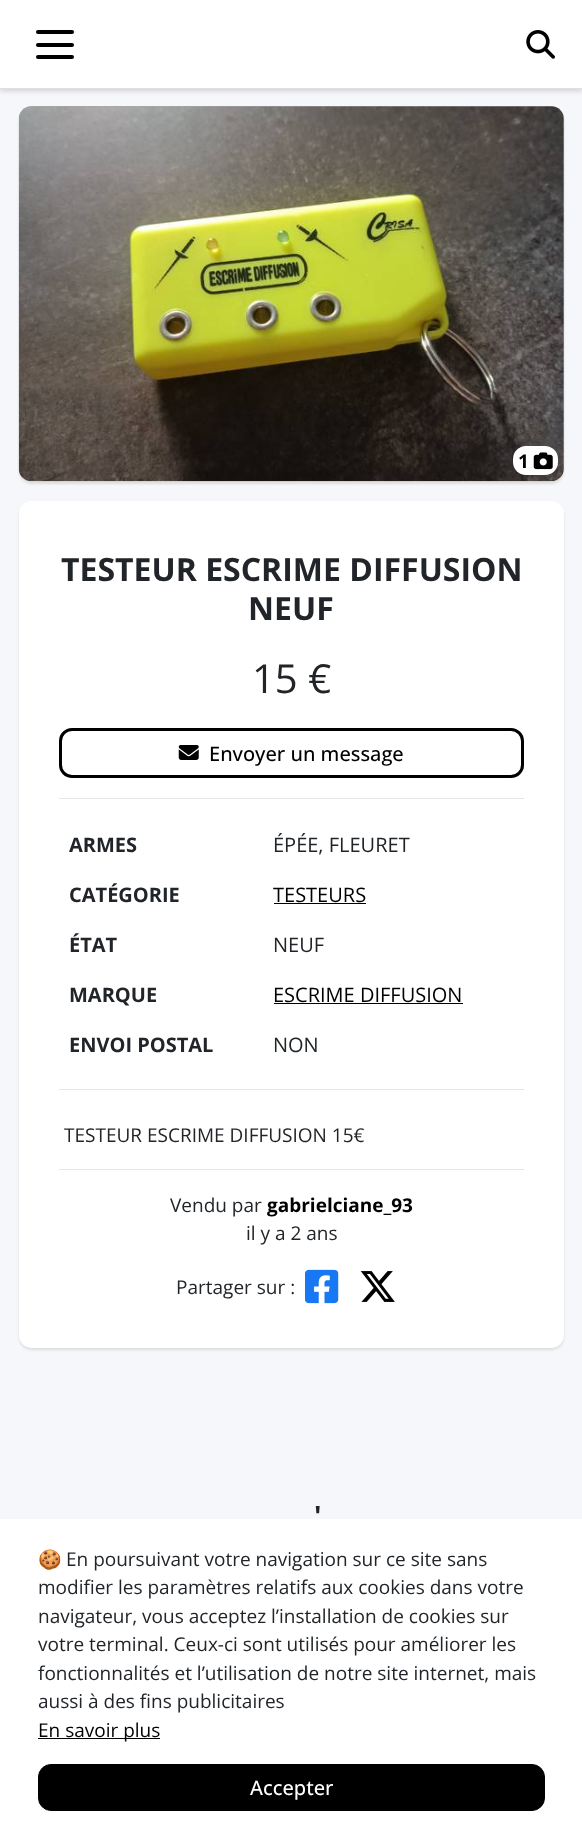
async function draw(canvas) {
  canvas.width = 582
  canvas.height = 1836
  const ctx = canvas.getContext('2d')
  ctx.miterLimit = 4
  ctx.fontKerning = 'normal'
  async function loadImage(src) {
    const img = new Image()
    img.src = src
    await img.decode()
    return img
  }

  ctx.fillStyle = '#f5f7fa'
  ctx.fillRect(0, 0, 582, 1836)
  ctx.fillStyle = '#00000026'
  ctx.filter = 'blur(2.5px)'
  ctx.beginPath()
  ctx.rect(0, 3, 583, 88)
  ctx.fill()
  ctx.filter = 'none'
  ctx.fillStyle = '#fff'
  ctx.fillRect(0, 0, 582, 88)
  ctx.fillStyle = '#e0e0e0'
  ctx.fillRect(0, 88, 582, 1)
  ctx.fillStyle = '#000'
  ctx.beginPath()
  ctx.roundRect(36, 30, 38, 4, 2)
  ctx.fill()
  ctx.beginPath()
  ctx.roundRect(36, 43, 38, 4, 2)
  ctx.fill()
  ctx.beginPath()
  ctx.roundRect(36, 55, 38, 4, 2)
  ctx.fill()
  ctx.drawImage(await loadImage('image0.png'), 526, 30, 29, 29)
  ctx.fillStyle = '#ddd'
  ctx.filter = 'blur(1px)'
  ctx.beginPath()
  ctx.roundRect(19, 109, 545, 375, 13)
  ctx.fill()
  ctx.filter = 'none'
  ctx.fillStyle = '#a9a9a9'
  ctx.beginPath()
  ctx.roundRect(19, 106, 545, 375, 13)
  ctx.fill()
  ctx.drawImage(await loadImage('image1.png'), 18, 106, 546, 376)
  ctx.fillStyle = '#fff'
  ctx.beginPath()
  ctx.roundRect(513, 446, 45, 29, 13)
  ctx.fill()
  ctx.font = 'bold 19px Open Sans'
  ctx.fillStyle = '#000'
  ctx.fillText('1', 518, 468)
  ctx.drawImage(await loadImage('image2.png'), 533, 452, 20, 18)
  ctx.fillStyle = '#ddd'
  ctx.filter = 'blur(1px)'
  ctx.beginPath()
  ctx.roundRect(19, 504, 545, 846, 13)
  ctx.fill()
  ctx.filter = 'none'
  ctx.fillStyle = '#fff'
  ctx.beginPath()
  ctx.roundRect(19, 501, 545, 847, 13)
  ctx.fill()
  ctx.font = 'bold 32px Open Sans'
  ctx.fillStyle = '#212529'
  ctx.fillText('TESTEUR ESCRIME DIFFUSION', 61, 581)
  ctx.fillText('NEUF', 248, 620)
  ctx.font = '40px Open Sans'
  ctx.fillText('15 €', 252, 693)
  ctx.beginPath()
  ctx.roundRect(60.5, 729.5, 462, 47, 11.5)
  ctx.strokeStyle = '#000'
  ctx.lineWidth = 3
  ctx.stroke()
  ctx.drawImage(await loadImage('image3.png'), 178, 745, 21, 15)
  ctx.font = '500 20px Open Sans'
  ctx.fillStyle = '#000'
  ctx.fillText('Envoyer un message', 209, 761)
  ctx.fillStyle = '#e6e6e6'
  ctx.fillRect(59, 798, 465, 1)
  ctx.font = 'bold 20px Open Sans'
  ctx.fillStyle = '#212529'
  ctx.fillText('ARMES', 69, 852)
  ctx.font = '20px Open Sans'
  ctx.fillText('ÉPÉE, FLEURET', 273, 852)
  ctx.font = 'bold 20px Open Sans'
  ctx.fillText('CATÉGORIE', 69, 902)
  ctx.font = '20px Open Sans'
  ctx.fillStyle = '#000'
  ctx.fillText('TESTEURS', 273, 902)
  ctx.fillRect(274, 903, 92, 1)
  ctx.font = 'bold 20px Open Sans'
  ctx.fillStyle = '#212529'
  ctx.fillText('ÉTAT', 69, 952)
  ctx.font = '20px Open Sans'
  ctx.fillText('NEUF', 273, 952)
  ctx.font = 'bold 20px Open Sans'
  ctx.fillText('MARQUE', 69, 1002)
  ctx.font = '20px Open Sans'
  ctx.fillStyle = '#000'
  ctx.fillText('ESCRIME DIFFUSION', 273, 1002)
  ctx.fillRect(274, 1003, 189, 1)
  ctx.font = 'bold 20px Open Sans'
  ctx.fillStyle = '#212529'
  ctx.fillText('ENVOI POSTAL', 69, 1052)
  ctx.font = '20px Open Sans'
  ctx.fillText('NON', 273, 1052)
  ctx.fillStyle = '#e6e6e6'
  ctx.fillRect(59, 1089, 465, 1)
  ctx.font = '19px Open Sans'
  ctx.fillStyle = '#212529'
  ctx.fillText('TESTEUR ESCRIME DIFFUSION 15€', 64, 1142)
  ctx.fillStyle = '#e6e6e6'
  ctx.fillRect(59, 1169, 465, 1)
  ctx.fillStyle = '#212529'
  ctx.fillText('Vendu par', 170, 1212)
  ctx.font = 'bold 19px Open Sans'
  ctx.fillStyle = '#000'
  ctx.fillText('gabrielciane_93', 267, 1212)
  ctx.font = '19px Open Sans'
  ctx.fillStyle = '#212529'
  ctx.fillText('il y a 2 ans', 246, 1240)
  ctx.fillText('Partager sur :', 176, 1294)
  ctx.drawImage(await loadImage('image4.png'), 305, 1269, 34, 35)
  ctx.drawImage(await loadImage('image5.png'), 360, 1271, 35, 31)
  ctx.font = 'bold 28px Open Sans'
  ctx.fillText('\'', 314, 1526)
  ctx.fillStyle = '#fff'
  ctx.fillRect(0, 1519, 582, 317)
  ctx.font = '19px Noto Color Emoji'
  ctx.fillStyle = '#212529'
  ctx.fillText('🍪', 38, 1566)
  ctx.font = '19px Open Sans'
  ctx.fillText('En poursuivant votre navigation sur ce site sans', 66, 1566)
  ctx.fillText('modifier les paramètres relatifs aux cookies dans votre', 38, 1594)
  ctx.fillText('navigateur, vous acceptez l’installation de cookies sur', 38, 1623)
  ctx.fillText('votre terminal. Ceux-ci sont utilisés pour améliorer les', 38, 1651)
  ctx.fillText('fonctionnalités et l’utilisation de notre site internet, mais', 38, 1680)
  ctx.fillText('aussi à des fins publicitaires', 38, 1708)
  ctx.fillStyle = '#000'
  ctx.fillRect(38, 1738, 122, 1)
  ctx.fillText('En savoir plus', 38, 1737)
  ctx.beginPath()
  ctx.roundRect(38.5, 1764.5, 506, 46, 12.5)
  ctx.fill()
  ctx.lineWidth = 1
  ctx.stroke()
  ctx.font = '500 20px Open Sans'
  ctx.fillStyle = '#fff'
  ctx.fillText('Accepter', 250, 1795)
}

draw(document.querySelector('canvas'))
